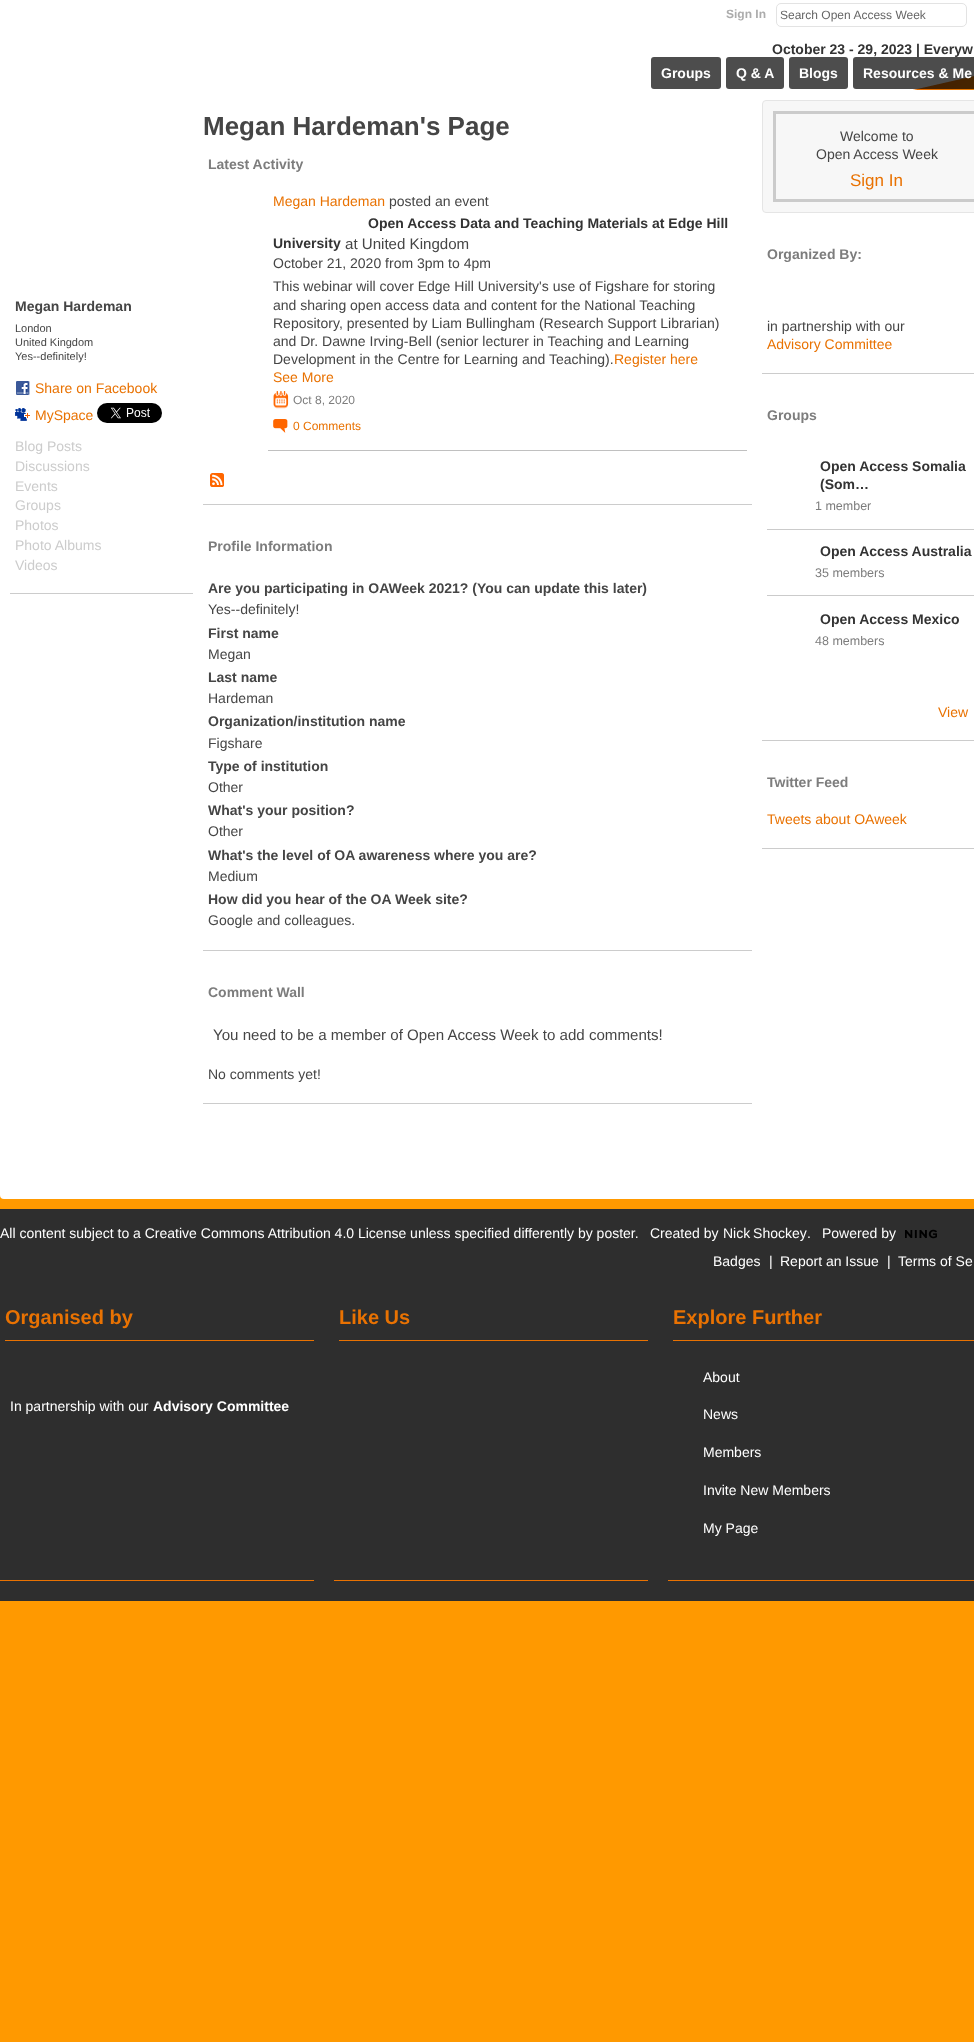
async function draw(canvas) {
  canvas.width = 974
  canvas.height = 2042
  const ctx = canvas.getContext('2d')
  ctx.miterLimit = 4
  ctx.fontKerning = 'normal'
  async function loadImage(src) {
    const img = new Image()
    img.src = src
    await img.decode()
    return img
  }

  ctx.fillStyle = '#f90'
  ctx.fillRect(0, 0, 974, 2042)
  ctx.drawImage(await loadImage('image0.png'), 0, 0, 974, 94)
  ctx.font = 'bold 12px Liberation Sans'
  ctx.fillStyle = '#acacac'
  ctx.fillText('Sign In', 726, 18)
  ctx.beginPath()
  ctx.roundRect(776.5, 3.5, 190, 23, 4.5)
  ctx.strokeStyle = '#e3e3e3'
  ctx.stroke()
  ctx.font = '12px Liberation Sans'
  ctx.fillStyle = '#666'
  ctx.fillText('Search Open Access Week', 780, 19)
  ctx.font = 'bold 14px Liberation Sans'
  ctx.fillStyle = '#333'
  ctx.fillText('October 23 - 29, 2023 | Everyw', 772, 54)
  ctx.fillStyle = '#4d4d4d'
  ctx.beginPath()
  ctx.roundRect(651, 57, 70, 32, 3)
  ctx.fill()
  ctx.fillStyle = '#fff'
  ctx.fillText('Groups', 661, 78)
  ctx.fillStyle = '#4d4d4d'
  ctx.beginPath()
  ctx.roundRect(726, 57, 58, 32, 3)
  ctx.fill()
  ctx.fillStyle = '#fff'
  ctx.fillText('Q & A', 736, 78)
  ctx.fillStyle = '#4d4d4d'
  ctx.beginPath()
  ctx.roundRect(789, 57, 59, 32, 3)
  ctx.fill()
  ctx.fillStyle = '#fff'
  ctx.fillText('Blogs', 799, 78)
  ctx.fillStyle = '#000000b3'
  ctx.beginPath()
  ctx.roundRect(853, 57, 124, 32, 3)
  ctx.fill()
  ctx.fillStyle = '#fff'
  ctx.fillText('Resources & Me', 863, 78)
  ctx.beginPath()
  ctx.roundRect(0, 90, 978, 1109, 4)
  ctx.fill()
  ctx.fillStyle = '#ccc'
  ctx.fillRect(10, 593, 183, 1)
  ctx.fillStyle = '#454545'
  ctx.fillText('Megan Hardeman', 15, 311)
  ctx.font = '11px Liberation Sans'
  ctx.fillText('London', 15, 332)
  ctx.fillText('United Kingdom', 15, 346)
  ctx.fillText('Yes--definitely!', 15, 360)
  ctx.drawImage(await loadImage('image1.png'), 16, 381, 14, 14)
  ctx.font = '14px Liberation Sans'
  ctx.fillStyle = '#e97202'
  ctx.fillText('Share on Facebook', 35, 393)
  ctx.drawImage(await loadImage('image2.png'), 15, 408, 15, 13)
  ctx.fillText('MySpace', 35, 420)
  ctx.drawImage(await loadImage('image3.png'), 97, 403, 65, 20)
  ctx.fillStyle = '#ccc'
  ctx.fillText('Blog Posts', 15, 451)
  ctx.fillText('Discussions', 15, 471)
  ctx.fillText('Events', 15, 491)
  ctx.fillText('Groups', 15, 510)
  ctx.fillText('Photos', 15, 530)
  ctx.fillText('Photo Albums', 15, 550)
  ctx.fillText('Videos', 15, 570)
  ctx.font = 'bold 26px Liberation Sans'
  ctx.fillStyle = '#454545'
  ctx.fillText('Megan Hardeman\'s Page', 203, 135)
  ctx.fillStyle = '#ccc'
  ctx.fillRect(203, 504, 549, 1)
  ctx.font = 'bold 14px Liberation Sans'
  ctx.fillStyle = '#7d7d7d'
  ctx.fillText('Latest Activity', 208, 169)
  ctx.fillStyle = '#c0c0c0'
  ctx.fillRect(268, 450, 479, 1)
  ctx.font = '14px Liberation Sans'
  ctx.fillStyle = '#e97202'
  ctx.fillText('Megan Hardeman', 273, 206)
  ctx.fillStyle = '#454545'
  ctx.fillText('posted an event', 389, 206)
  ctx.font = 'bold 14px Liberation Sans'
  ctx.fillStyle = '#333'
  ctx.fillText('Open Access Data and Teaching Materials at Edge Hill', 368, 228)
  ctx.fillText('University', 273, 248)
  ctx.font = '15.1px Liberation Sans'
  ctx.fillStyle = '#454545'
  ctx.fillText('at United Kingdom', 345, 249)
  ctx.font = '14px Liberation Sans'
  ctx.fillText('October 21, 2020 from 3pm to 4pm', 273, 268)
  ctx.fillText('This webinar will cover Edge Hill University\'s use of Figshare for storing', 273, 291)
  ctx.fillText('and sharing open access data and content for the National Teaching', 273, 310)
  ctx.fillText('Repository, presented by Liam Bullingham (Research Support Librarian)', 273, 328)
  ctx.fillText('and Dr. Dawne Irving-Bell (senior lecturer in Teaching and Learning', 273, 346)
  ctx.fillText('Development in the Centre for Learning and Teaching).', 273, 364)
  ctx.fillStyle = '#e97202'
  ctx.fillText('Register here', 614, 364)
  ctx.fillText('See More', 273, 382)
  ctx.drawImage(await loadImage('image4.png'), 273, 391, 16, 18)
  ctx.font = '12px Liberation Sans'
  ctx.fillStyle = '#7d7d7d'
  ctx.fillText('Oct 8, 2020', 293, 404)
  ctx.drawImage(await loadImage('image5.png'), 273, 419, 15, 14)
  ctx.fillStyle = '#e97202'
  ctx.fillText('0 Comments', 293, 430)
  ctx.drawImage(await loadImage('image6.png'), 210, 473, 14, 14)
  ctx.fillStyle = '#ccc'
  ctx.fillRect(203, 950, 549, 1)
  ctx.font = 'bold 14px Liberation Sans'
  ctx.fillStyle = '#7d7d7d'
  ctx.fillText('Profile Information', 208, 551)
  ctx.fillStyle = '#454545'
  ctx.fillText('Are you participating in OAWeek 2021? (You can update this later)', 208, 593)
  ctx.font = '14px Liberation Sans'
  ctx.fillText('Yes--definitely!', 208, 614)
  ctx.font = 'bold 14px Liberation Sans'
  ctx.fillText('First name', 208, 638)
  ctx.font = '14px Liberation Sans'
  ctx.fillText('Megan', 208, 659)
  ctx.font = 'bold 14px Liberation Sans'
  ctx.fillText('Last name', 208, 682)
  ctx.font = '14px Liberation Sans'
  ctx.fillText('Hardeman', 208, 703)
  ctx.font = 'bold 14px Liberation Sans'
  ctx.fillText('Organization/institution name', 208, 726)
  ctx.font = '14px Liberation Sans'
  ctx.fillText('Figshare', 208, 748)
  ctx.font = 'bold 14px Liberation Sans'
  ctx.fillText('Type of institution', 208, 771)
  ctx.font = '14px Liberation Sans'
  ctx.fillText('Other', 208, 792)
  ctx.font = 'bold 14px Liberation Sans'
  ctx.fillText('What\'s your position?', 208, 815)
  ctx.font = '14px Liberation Sans'
  ctx.fillText('Other', 208, 836)
  ctx.font = 'bold 14px Liberation Sans'
  ctx.fillText('What\'s the level of OA awareness where you are?', 208, 860)
  ctx.font = '14px Liberation Sans'
  ctx.fillText('Medium', 208, 881)
  ctx.font = 'bold 14px Liberation Sans'
  ctx.fillText('How did you hear of the OA Week site?', 208, 904)
  ctx.font = '14px Liberation Sans'
  ctx.fillText('Google and colleagues.', 208, 925)
  ctx.fillStyle = '#ccc'
  ctx.fillRect(203, 1103, 549, 1)
  ctx.font = 'bold 14px Liberation Sans'
  ctx.fillStyle = '#7d7d7d'
  ctx.fillText('Comment Wall', 208, 997)
  ctx.font = '15.1px Liberation Sans'
  ctx.fillStyle = '#454545'
  ctx.fillText('You need to be a member of Open Access Week to add comments!', 213, 1040)
  ctx.font = '14px Liberation Sans'
  ctx.fillText('No comments yet!', 208, 1079)
  ctx.fillStyle = '#f7f7f7'
  ctx.beginPath()
  ctx.roundRect(762.5, 100.5, 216, 112, 3.5)
  ctx.fill()
  ctx.strokeStyle = '#e5e5e5'
  ctx.stroke()
  ctx.strokeStyle = '#cbcbcb'
  ctx.lineWidth = 3
  ctx.strokeRect(774.5, 112.5, 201, 88)
  ctx.fillStyle = '#454545'
  ctx.fillText('Welcome to', 840, 141)
  ctx.fillText('Open Access Week', 816, 159)
  ctx.font = '17px Liberation Sans'
  ctx.fillStyle = '#e97202'
  ctx.fillText('Sign In', 850, 186)
  ctx.fillStyle = '#ccc'
  ctx.fillRect(762, 373, 212, 1)
  ctx.font = 'bold 14px Liberation Sans'
  ctx.fillStyle = '#7d7d7d'
  ctx.fillText('Organized By:', 767, 259)
  ctx.font = '14px Liberation Sans'
  ctx.fillStyle = '#454545'
  ctx.fillText('in partnership with our', 767, 331)
  ctx.fillStyle = '#e97202'
  ctx.fillText('Advisory Committee', 767, 349)
  ctx.fillStyle = '#ccc'
  ctx.fillRect(762, 740, 212, 1)
  ctx.font = 'bold 14px Liberation Sans'
  ctx.fillStyle = '#7d7d7d'
  ctx.fillText('Groups', 767, 420)
  ctx.fillStyle = '#cbcbcb'
  ctx.fillRect(767, 529, 207, 1)
  ctx.fillStyle = '#333'
  ctx.fillText('Open Access Somalia', 820, 471)
  ctx.fillText('(Som…', 820, 489)
  ctx.font = '12.5px Liberation Sans'
  ctx.fillStyle = '#7d7d7d'
  ctx.fillText('1 member', 815, 510)
  ctx.fillStyle = '#cbcbcb'
  ctx.fillRect(767, 595, 207, 1)
  ctx.font = 'bold 14px Liberation Sans'
  ctx.fillStyle = '#333'
  ctx.fillText('Open Access Australia', 820, 556)
  ctx.font = '12.5px Liberation Sans'
  ctx.fillStyle = '#7d7d7d'
  ctx.fillText('35 members', 815, 577)
  ctx.font = 'bold 14px Liberation Sans'
  ctx.fillStyle = '#333'
  ctx.fillText('Open Access Mexico', 820, 624)
  ctx.font = '12.5px Liberation Sans'
  ctx.fillStyle = '#7d7d7d'
  ctx.fillText('48 members', 815, 645)
  ctx.font = '14px Liberation Sans'
  ctx.fillStyle = '#e97202'
  ctx.fillText('View', 938, 717)
  ctx.fillStyle = '#ccc'
  ctx.fillRect(762, 848, 212, 1)
  ctx.font = 'bold 14px Liberation Sans'
  ctx.fillStyle = '#7d7d7d'
  ctx.fillText('Twitter Feed', 767, 787)
  ctx.font = '14px Liberation Sans'
  ctx.fillStyle = '#e97202'
  ctx.fillText('Tweets about OAweek', 767, 824)
  ctx.fillStyle = '#2e2e2e'
  ctx.fillRect(0, 1209, 974, 392)
  ctx.fillStyle = '#fff'
  ctx.fillText('All content subject to a Creative Commons Attribution 4.0 License unless specified differently by poster.', 0, 1238)
  ctx.fillText('Created by', 650, 1238)
  ctx.wordSpacing = '-1px'
  ctx.fillText('Nick Shockey', 723, 1238)
  ctx.wordSpacing = '0px'
  ctx.fillText('.', 807, 1238)
  ctx.fillText('Powered by', 822, 1238)
  ctx.drawImage(await loadImage('image7.png'), 905, 1229, 32, 10)
  ctx.fillText('Badges', 713, 1266)
  ctx.fillText('|', 769, 1266)
  ctx.fillText('Report an Issue', 780, 1266)
  ctx.fillText('|', 887, 1266)
  ctx.fillText('Terms of Se', 898, 1266)
  ctx.fillStyle = '#e97202'
  ctx.fillRect(0, 1580, 314, 1)
  ctx.fillRect(5, 1340, 309, 1)
  ctx.font = 'bold 20px Liberation Sans'
  ctx.fillText('Organised by', 5, 1324)
  ctx.font = '14px Liberation Sans'
  ctx.fillStyle = '#fff'
  ctx.fillText('In partnership with our', 10, 1411)
  ctx.font = 'bold 14px Liberation Sans'
  ctx.fillText('Advisory Committee', 153, 1411)
  ctx.fillStyle = '#e97202'
  ctx.fillRect(334, 1580, 314, 1)
  ctx.fillRect(339, 1340, 309, 1)
  ctx.font = 'bold 20px Liberation Sans'
  ctx.fillText('Like Us', 339, 1324)
  ctx.fillRect(668, 1580, 306, 1)
  ctx.fillRect(673, 1340, 301, 1)
  ctx.fillText('Explore Further', 673, 1324)
  ctx.font = '14px Liberation Sans'
  ctx.fillStyle = '#fff'
  ctx.fillText('About', 703, 1382)
  ctx.fillText('News', 703, 1419)
  ctx.fillText('Members', 703, 1457)
  ctx.fillText('Invite New Members', 703, 1495)
  ctx.fillText('My Page', 703, 1533)
}

draw(document.querySelector('canvas'))
